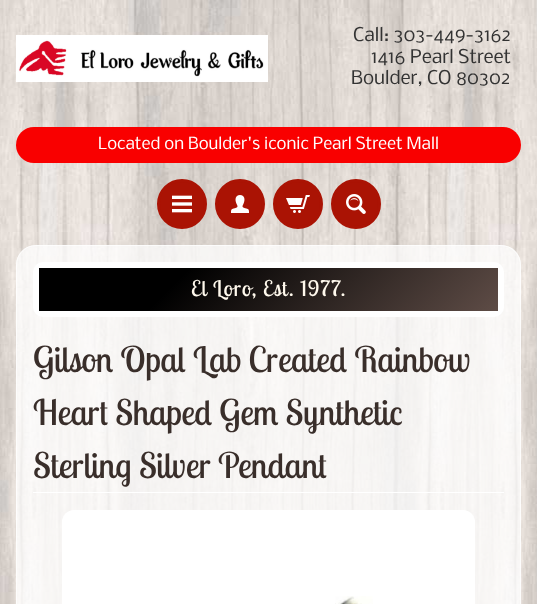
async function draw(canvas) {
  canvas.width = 537
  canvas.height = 604
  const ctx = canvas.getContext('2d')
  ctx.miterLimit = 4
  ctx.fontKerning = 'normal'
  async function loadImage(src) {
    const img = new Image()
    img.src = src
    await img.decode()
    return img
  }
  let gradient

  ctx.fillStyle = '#fff'
  ctx.fillRect(0, 0, 537, 604)
  ctx.drawImage(await loadImage('image0.png'), 0, 0, 537, 604)
  ctx.drawImage(await loadImage('image1.png'), 16, 35, 252, 47)
  ctx.font = '18px Nobile'
  ctx.fillStyle = '#333'
  ctx.fillText('Call: 303-449-3162', 353, 41)
  ctx.fillText('1416 Pearl Street', 371, 63)
  ctx.fillText('Boulder, CO 80302', 351, 84)
  ctx.fillStyle = '#f90000'
  ctx.beginPath()
  ctx.roundRect(16, 127, 505, 36, 18)
  ctx.fill()
  ctx.font = '16px Nobile'
  ctx.fillStyle = '#fff'
  ctx.fillText('Located on Boulder\'s iconic Pearl Street Mall', 98, 149)
  ctx.fillStyle = '#aa1304'
  ctx.beginPath()
  ctx.arc(182, 204, 23.5, 0, 2 * Math.PI)
  ctx.fill()
  ctx.strokeStyle = '#aa1304'
  ctx.lineWidth = 3
  ctx.stroke()
  ctx.drawImage(await loadImage('image2.png'), 172, 195, 20, 18)
  ctx.beginPath()
  ctx.arc(240, 204, 23.5, 0, 2 * Math.PI)
  ctx.fill()
  ctx.stroke()
  ctx.drawImage(await loadImage('image3.png'), 231, 195, 18, 18)
  ctx.beginPath()
  ctx.arc(298, 204, 23.5, 0, 2 * Math.PI)
  ctx.fill()
  ctx.stroke()
  ctx.drawImage(await loadImage('image4.png'), 286, 195, 24, 18)
  ctx.beginPath()
  ctx.arc(356, 204, 23.5, 0, 2 * Math.PI)
  ctx.fill()
  ctx.stroke()
  ctx.drawImage(await loadImage('image5.png'), 346, 194, 20, 20)
  ctx.fillStyle = '#ffffffbf'
  ctx.beginPath()
  ctx.roundRect(16, 245, 505, 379, 20)
  ctx.fill()
  ctx.beginPath()
  ctx.roundRect(16.5, 245.5, 504, 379, 19.5)
  ctx.strokeStyle = '#ffffffb3'
  ctx.lineWidth = 1
  ctx.stroke()
  ctx.fillStyle = '#fff'
  ctx.beginPath()
  ctx.roundRect(33, 262, 471, 55, 10)
  ctx.fill()
  gradient = ctx.createLinearGradient(143, 164, 394, 415)
  gradient.addColorStop(0.3, '#000')
  gradient.addColorStop(1, '#5e4c46')
  ctx.fillStyle = gradient
  ctx.fillRect(39, 268, 459, 43)
  ctx.letterSpacing = '1px'
  ctx.font = '21.5px Lobster Two'
  ctx.fillStyle = '#fff9ed'
  ctx.fillText('El Loro, Est. 1977.', 191, 296)
  ctx.fillStyle = '#fff'
  ctx.fillRect(33, 492, 471, 1)
  ctx.letterSpacing = '0px'
  ctx.font = '35.25px Lobster Two'
  ctx.fillStyle = '#392e2a'
  ctx.fillText('Gilson Opal Lab Created Rainbow', 33, 372)
  ctx.fillText('Heart Shaped Gem Synthetic', 33, 425)
  ctx.fillText('Sterling Silver Pendant', 33, 478)
  ctx.fillStyle = '#fff'
  ctx.beginPath()
  ctx.roundRect(62, 510, 413, 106, 12)
  ctx.fill()
  ctx.drawImage(await loadImage('image6.png'), 335, 596, 38, 8)
}

draw(document.querySelector('canvas'))
